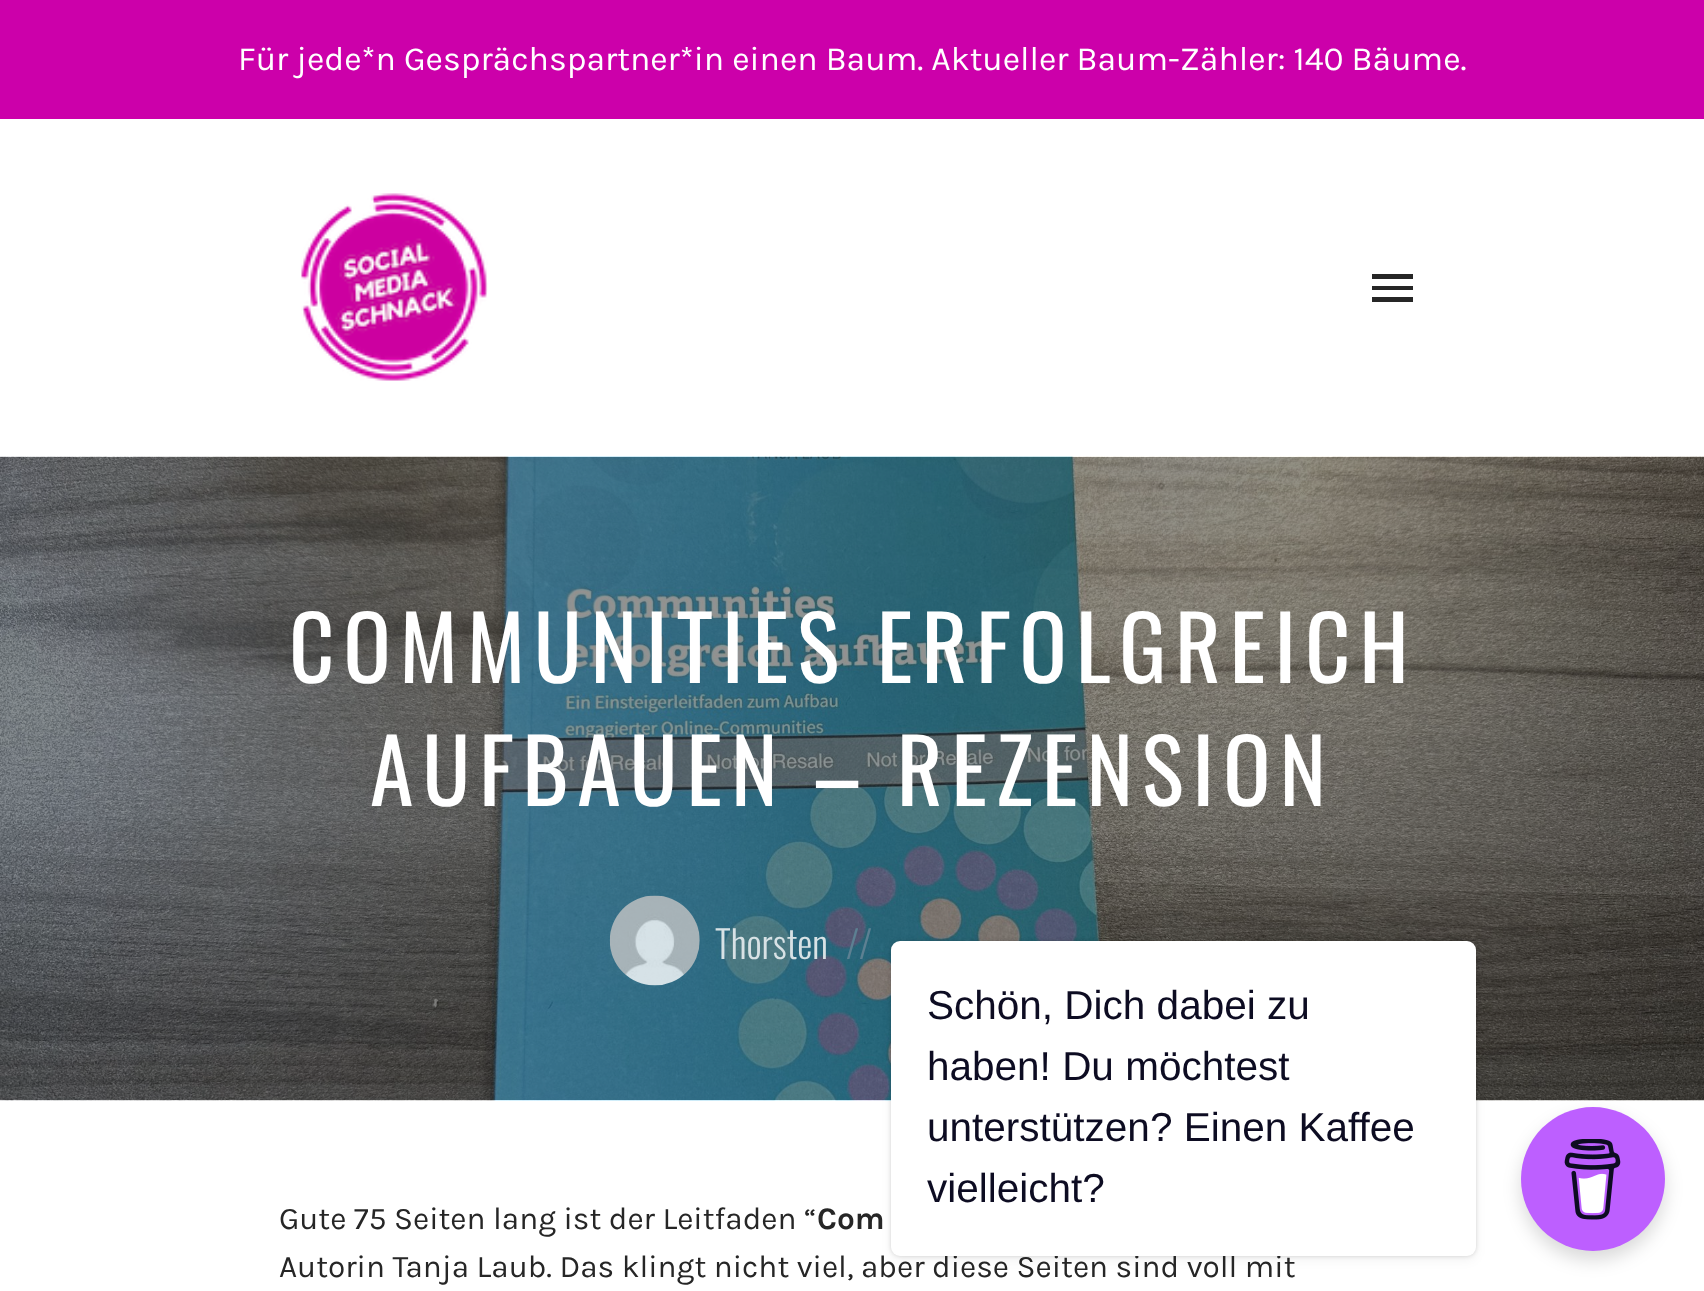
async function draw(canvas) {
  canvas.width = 1704
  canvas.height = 1291
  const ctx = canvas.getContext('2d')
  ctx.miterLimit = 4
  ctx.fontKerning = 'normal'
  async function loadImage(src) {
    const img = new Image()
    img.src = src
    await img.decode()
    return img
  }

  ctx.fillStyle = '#fff'
  ctx.fillRect(0, 0, 1704, 1291)
  ctx.fillStyle = '#c0a'
  ctx.fillRect(0, 0, 1704, 119)
  ctx.font = '33.75px Karla'
  ctx.fillStyle = '#fff'
  ctx.fillText('Für jede*n Gesprächspartner*in einen Baum. Aktueller Baum-Zähler: 140 Bäume.', 238, 70)
  ctx.drawImage(await loadImage('image0.png'), 301, 193, 187, 188)
  ctx.fillStyle = '#262626'
  ctx.beginPath()
  ctx.moveTo(1372, 274)
  ctx.lineTo(1413, 274)
  ctx.lineTo(1413, 279)
  ctx.lineTo(1372, 279)
  ctx.closePath()
  ctx.moveTo(1372, 286)
  ctx.lineTo(1413, 286)
  ctx.lineTo(1413, 290)
  ctx.lineTo(1372, 290)
  ctx.closePath()
  ctx.moveTo(1372, 297)
  ctx.lineTo(1413, 297)
  ctx.lineTo(1413, 302)
  ctx.lineTo(1372, 302)
  ctx.closePath()
  ctx.fill()
  ctx.drawImage(await loadImage('image1.png'), 0, 456, 1704, 645)
  ctx.letterSpacing = '8.8px'
  ctx.font = '88.25px Oswald'
  ctx.fillStyle = '#fff'
  ctx.fillText('COMMUNITIES ERFOLGREICH', 289, 683)
  ctx.fillText('AUFBAUEN – REZENSION', 370, 806)
  ctx.drawImage(await loadImage('image2.png'), 609, 895, 91, 91)
  ctx.letterSpacing = '0px'
  ctx.font = '300 38px Oswald'
  ctx.fillStyle = '#d8e2e5'
  ctx.fillText('Thorsten', 715, 959)
  ctx.fillStyle = '#5d8092'
  ctx.fillText('//', 846, 959)
  ctx.fillStyle = '#00000026'
  ctx.filter = 'blur(2px)'
  ctx.beginPath()
  ctx.roundRect(891, 941, 585, 315, 9)
  ctx.fill()
  ctx.filter = 'none'
  ctx.fillStyle = '#0000000d'
  ctx.filter = 'blur(5.5px)'
  ctx.beginPath()
  ctx.roundRect(891, 945, 585, 315, 9)
  ctx.fill()
  ctx.filter = 'none'
  ctx.font = '31.5px Karla'
  ctx.fillStyle = '#262626'
  ctx.fillText('Autorin Tanja Laub. Das klingt nicht viel, aber diese Seiten sind voll mit', 279, 1277)
  ctx.fillStyle = '#fff'
  ctx.beginPath()
  ctx.roundRect(891, 941, 585, 315, 9)
  ctx.fill()
  ctx.font = '40.5px Liberation Sans'
  ctx.fillStyle = '#0d0c22'
  ctx.fillText('Schön, Dich dabei zu', 927, 1019)
  ctx.fillText('haben! Du möchtest', 927, 1080)
  ctx.fillText('unterstützen? Einen Kaffee', 927, 1141)
  ctx.fillText('vielleicht?', 927, 1202)
  ctx.fillStyle = '#00000026'
  ctx.filter = 'blur(9px)'
  ctx.beginPath()
  ctx.roundRect(1521, 1116, 144, 144, 72)
  ctx.fill()
  ctx.filter = 'none'
  ctx.fillStyle = '#bd5fff'
  ctx.beginPath()
  ctx.arc(1593, 1179, 72, 0, 2 * Math.PI)
  ctx.fill()
  ctx.drawImage(await loadImage('image3.png'), 1564, 1139, 57, 81)
  ctx.font = '31.5px Karla'
  ctx.fillStyle = '#262626'
  ctx.fillText('Gute 75 Seiten lang ist der Leitfaden “', 279, 1229)
  ctx.font = 'bold 31.5px Karla'
  ctx.fillText('Com', 817, 1229)
}

draw(document.querySelector('canvas'))
